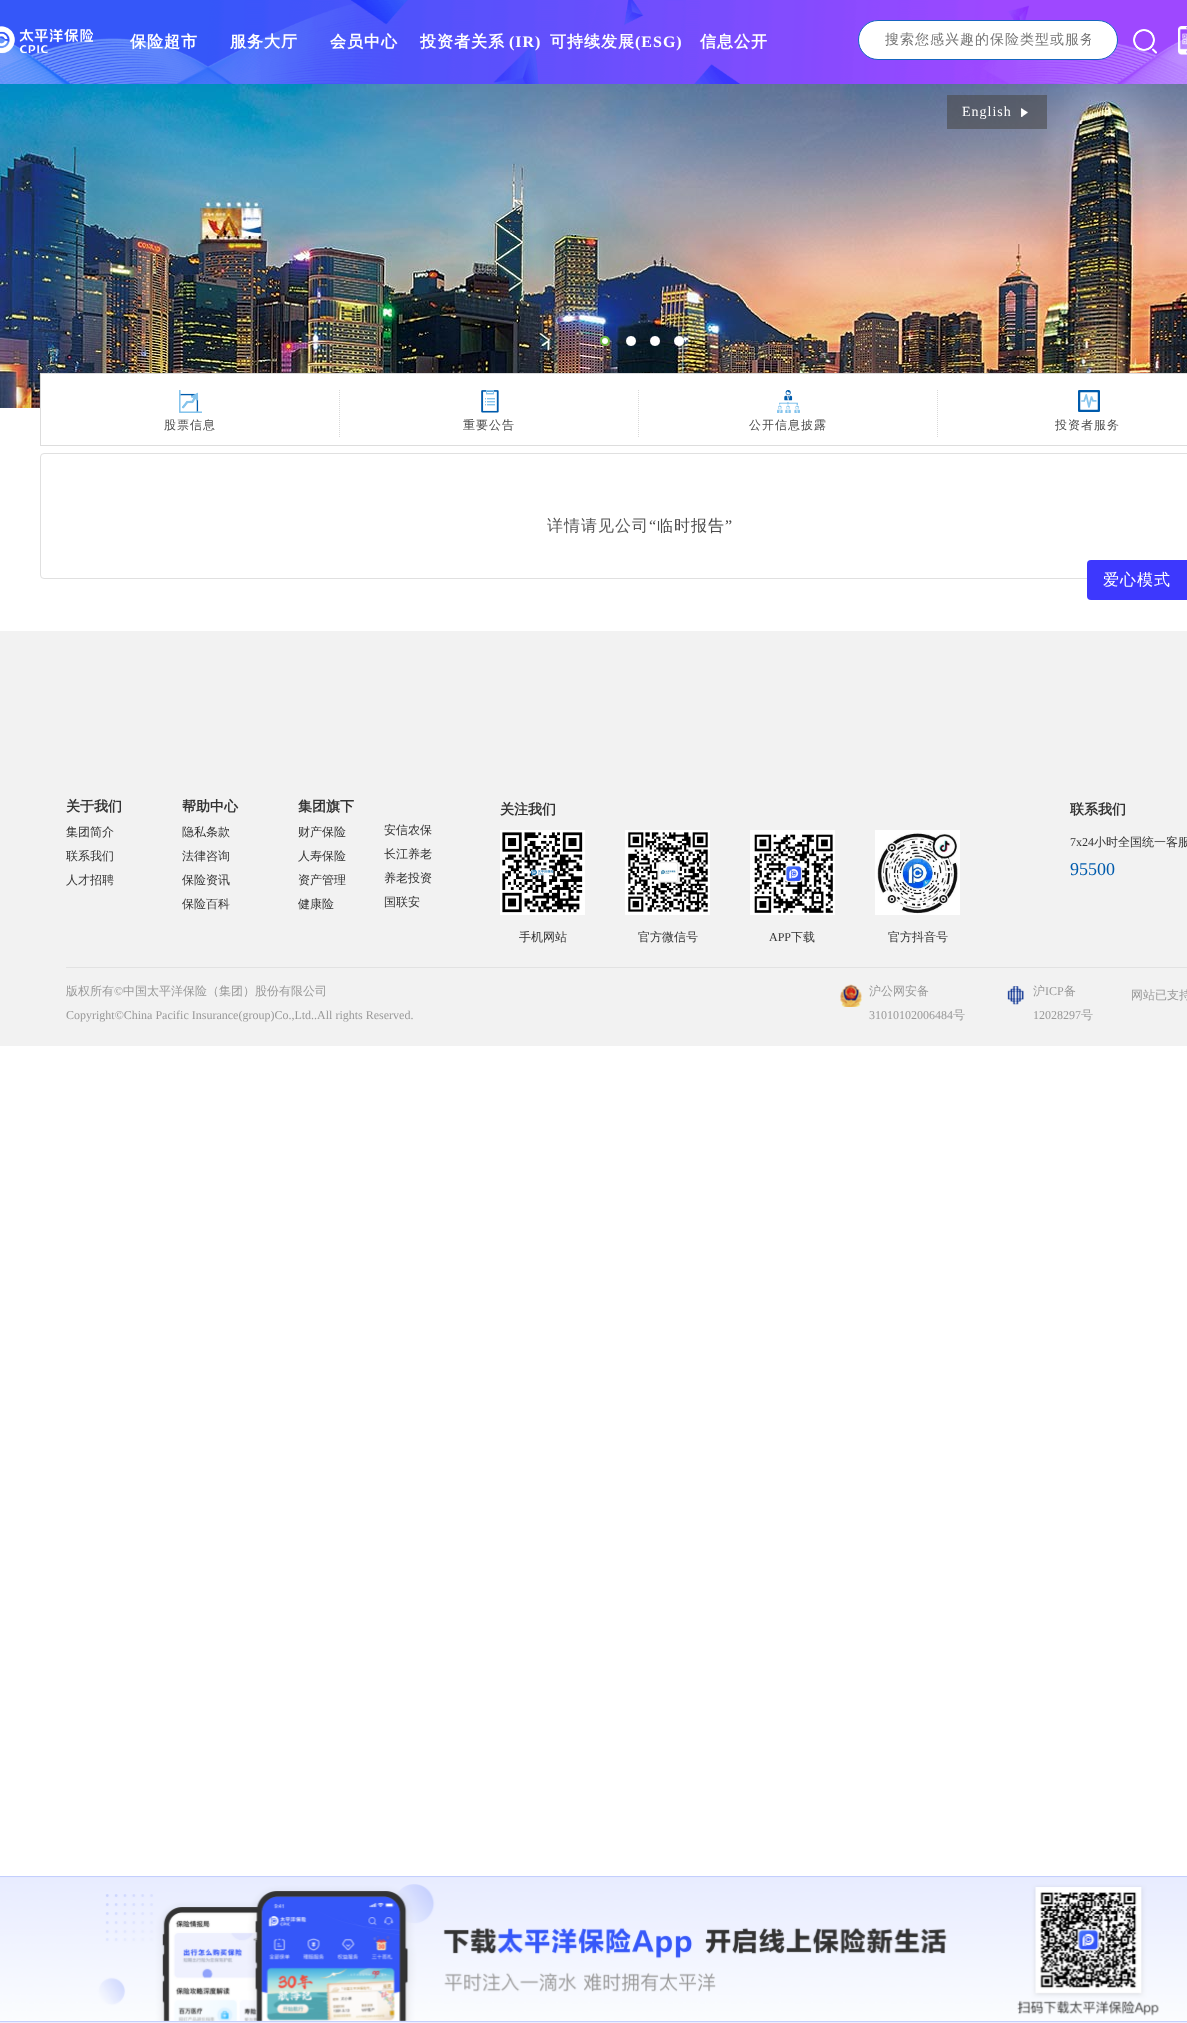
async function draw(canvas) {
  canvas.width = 1187
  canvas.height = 2023
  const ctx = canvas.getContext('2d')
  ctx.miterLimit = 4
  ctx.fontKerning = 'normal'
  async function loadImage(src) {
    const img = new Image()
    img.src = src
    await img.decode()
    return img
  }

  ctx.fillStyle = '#fff'
  ctx.fillRect(0, 0, 1187, 2023)
  ctx.drawImage(await loadImage('image0.png'), 0, 0, 1187, 84)
  ctx.drawImage(await loadImage('image1.png'), 0, 26, 93, 28)
  ctx.letterSpacing = '1px'
  ctx.font = 'bold 16px WenQuanYi Zen Hei'
  ctx.fillText('保险超市', 130, 47)
  ctx.fillText('服务大厅', 230, 47)
  ctx.fillText('会员中心', 330, 47)
  ctx.fillText('投资者关系', 420, 47)
  ctx.font = 'bold 16px Liberation Serif'
  ctx.fillText('(IR)', 509, 47)
  ctx.font = 'bold 16px WenQuanYi Zen Hei'
  ctx.fillText('可持续发展', 550, 47)
  ctx.font = 'bold 16px Liberation Serif'
  ctx.fillText('(ESG)', 635, 47)
  ctx.font = 'bold 16px WenQuanYi Zen Hei'
  ctx.fillText('信息公开', 700, 47)
  ctx.beginPath()
  ctx.roundRect(858.5, 20.5, 259, 39, 19.5)
  ctx.fill()
  ctx.strokeStyle = '#1565c0'
  ctx.stroke()
  ctx.save()
  ctx.beginPath()
  ctx.rect(885, 31, 206, 18)
  ctx.clip()
  ctx.font = '500 14px WenQuanYi Zen Hei'
  ctx.fillStyle = '#757575'
  ctx.fillText('搜索您感兴趣的保险类型或服务', 885, 44)
  ctx.restore()
  ctx.drawImage(await loadImage('image2.png'), 1133, 29, 24, 25)
  ctx.drawImage(await loadImage('image3.png'), 1178, 26, 9, 29)
  ctx.drawImage(await loadImage('image4.png'), 0, 84, 1187, 324)
  ctx.drawImage(await loadImage('image5.png'), 600, 336, 10, 10)
  ctx.drawImage(await loadImage('image6.png'), 626, 336, 10, 10)
  ctx.drawImage(await loadImage('image7.png'), 650, 336, 10, 10)
  ctx.drawImage(await loadImage('image8.png'), 674, 336, 10, 10)
  ctx.fillStyle = '#4a4a4a99'
  ctx.fillRect(947, 95, 100, 34)
  ctx.font = '14px Liberation Serif'
  ctx.fillStyle = '#fff'
  ctx.fillText('English', 962, 116)
  ctx.drawImage(await loadImage('image9.png'), 1021, 108, 7, 9)
  ctx.fillRect(41, 374, 1146, 34)
  ctx.strokeStyle = '#ddd'
  ctx.strokeRect(40.5, 373.5, 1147, 72)
  ctx.drawImage(await loadImage('image10.png'), 179, 390, 23, 23)
  ctx.beginPath()
  ctx.moveTo(339.5, 390)
  ctx.lineTo(339.5, 437)
  ctx.strokeStyle = '#d8d8d8'
  ctx.setLineDash([1, 1])
  ctx.stroke()
  ctx.font = '500 12px WenQuanYi Zen Hei'
  ctx.fillStyle = '#4a4a4a'
  ctx.fillText('股票信息', 164, 429)
  ctx.drawImage(await loadImage('image11.png'), 481, 390, 18, 23)
  ctx.beginPath()
  ctx.moveTo(638.5, 390)
  ctx.lineTo(638.5, 437)
  ctx.stroke()
  ctx.fillText('重要公告', 463, 429)
  ctx.drawImage(await loadImage('image12.png'), 777, 390, 23, 23)
  ctx.beginPath()
  ctx.moveTo(937.5, 390)
  ctx.lineTo(937.5, 437)
  ctx.stroke()
  ctx.fillText('公开信息披露', 749, 429)
  ctx.drawImage(await loadImage('image13.png'), 1078, 390, 22, 22)
  ctx.fillText('投资者服务', 1055, 429)
  ctx.beginPath()
  ctx.roundRect(40.5, 453.5, 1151, 125, 3.5)
  ctx.strokeStyle = '#e0e0e0'
  ctx.setLineDash([])
  ctx.stroke()
  ctx.font = '500 16px WenQuanYi Zen Hei'
  ctx.fillStyle = '#575757'
  ctx.fillText('详情请见公司', 547, 531)
  ctx.font = '16px Liberation Serif'
  ctx.fillStyle = '#4a4a4a'
  ctx.fillText('“', 649, 531)
  ctx.font = '500 16px WenQuanYi Zen Hei'
  ctx.fillText('临时报告', 657, 531)
  ctx.font = '16px Liberation Serif'
  ctx.fillText('”', 725, 531)
  ctx.fillStyle = '#f2f2f2'
  ctx.fillRect(0, 631, 1187, 415)
  ctx.fillStyle = '#e2e2e2'
  ctx.fillRect(66, 967, 1121, 1)
  ctx.letterSpacing = '0px'
  ctx.font = 'bold 14px WenQuanYi Zen Hei'
  ctx.fillStyle = '#333'
  ctx.fillText('关于我们', 66, 811)
  ctx.font = '500 12px WenQuanYi Zen Hei'
  ctx.fillText('集团简介', 66, 836)
  ctx.fillText('联系我们', 66, 860)
  ctx.fillText('人才招聘', 66, 884)
  ctx.font = 'bold 14px WenQuanYi Zen Hei'
  ctx.fillText('帮助中心', 182, 811)
  ctx.font = '500 12px WenQuanYi Zen Hei'
  ctx.fillText('隐私条款', 182, 836)
  ctx.fillText('法律咨询', 182, 860)
  ctx.fillText('保险资讯', 182, 884)
  ctx.fillText('保险百科', 182, 908)
  ctx.font = 'bold 14px WenQuanYi Zen Hei'
  ctx.fillText('集团旗下', 298, 811)
  ctx.font = '500 12px WenQuanYi Zen Hei'
  ctx.fillText('财产保险', 298, 836)
  ctx.fillText('人寿保险', 298, 860)
  ctx.fillText('资产管理', 298, 884)
  ctx.fillText('健康险', 298, 908)
  ctx.fillText('安信农保', 384, 834)
  ctx.fillText('长江养老', 384, 858)
  ctx.fillText('养老投资', 384, 882)
  ctx.fillText('国联安', 384, 906)
  ctx.font = 'bold 14px WenQuanYi Zen Hei'
  ctx.fillText('关注我们', 500, 814)
  ctx.drawImage(await loadImage('image14.png'), 500, 830, 85, 85)
  ctx.font = '500 12px WenQuanYi Zen Hei'
  ctx.fillText('手机网站', 519, 941)
  ctx.drawImage(await loadImage('image15.png'), 625, 830, 85, 85)
  ctx.fillText('官方微信号', 638, 941)
  ctx.drawImage(await loadImage('image16.png'), 750, 830, 85, 85)
  ctx.font = '12px Liberation Serif'
  ctx.fillText('APP', 769, 941)
  ctx.font = '500 12px WenQuanYi Zen Hei'
  ctx.fillText('下载', 791, 941)
  ctx.drawImage(await loadImage('image17.png'), 875, 830, 85, 85)
  ctx.fillText('官方抖音号', 888, 941)
  ctx.font = 'bold 14px WenQuanYi Zen Hei'
  ctx.fillText('联系我们', 1070, 814)
  ctx.font = '12px Liberation Serif'
  ctx.fillText('7x24', 1070, 846)
  ctx.font = '500 12px WenQuanYi Zen Hei'
  ctx.fillText('小时全国统一客服', 1094, 846)
  ctx.font = '18px Liberation Serif'
  ctx.fillStyle = '#005bac'
  ctx.fillText('95500', 1070, 875)
  ctx.font = '500 12px WenQuanYi Zen Hei'
  ctx.fillStyle = '#999'
  ctx.fillText('版权所有', 66, 995)
  ctx.font = '12px Liberation Serif'
  ctx.fillText('©', 114, 995)
  ctx.font = '500 12px WenQuanYi Zen Hei'
  ctx.fillText('中国太平洋保险（集团）股份有限公司', 123, 995)
  ctx.font = '12px Liberation Serif'
  ctx.fillText('Copyright©China Pacific Insurance(group)Co.,Ltd..All rights Reserved.', 66, 1019)
  ctx.drawImage(await loadImage('image18.png'), 840, 984, 22, 23)
  ctx.font = '500 12px WenQuanYi Zen Hei'
  ctx.fillText('沪公网安备', 869, 995)
  ctx.font = '12px Liberation Serif'
  ctx.fillText('31010102006484', 869, 1019)
  ctx.font = '500 12px WenQuanYi Zen Hei'
  ctx.fillText('号', 953, 1019)
  ctx.drawImage(await loadImage('image19.png'), 1007, 986, 17, 19)
  ctx.fillText('沪', 1033, 995)
  ctx.font = '12px Liberation Serif'
  ctx.fillText('ICP', 1045, 995)
  ctx.font = '500 12px WenQuanYi Zen Hei'
  ctx.fillText('备', 1064, 995)
  ctx.font = '12px Liberation Serif'
  ctx.fillText('12028297', 1033, 1019)
  ctx.font = '500 12px WenQuanYi Zen Hei'
  ctx.fillText('号', 1081, 1019)
  ctx.fillText('网站已支持', 1131, 999)
  ctx.drawImage(await loadImage('image20.png'), 0, 1876, 1187, 147)
  ctx.drawImage(await loadImage('image21.png'), 0, 1877, 1187, 144)
  ctx.fillStyle = '#3d38fd'
  ctx.beginPath()
  ctx.roundRect(1087, 560, 100, 40, [4, 0, 0, 4])
  ctx.fill()
  ctx.letterSpacing = '1px'
  ctx.font = '500 16px WenQuanYi Zen Hei'
  ctx.fillStyle = '#fff'
  ctx.fillText('爱心模式', 1103, 585)
}

draw(document.querySelector('canvas'))
